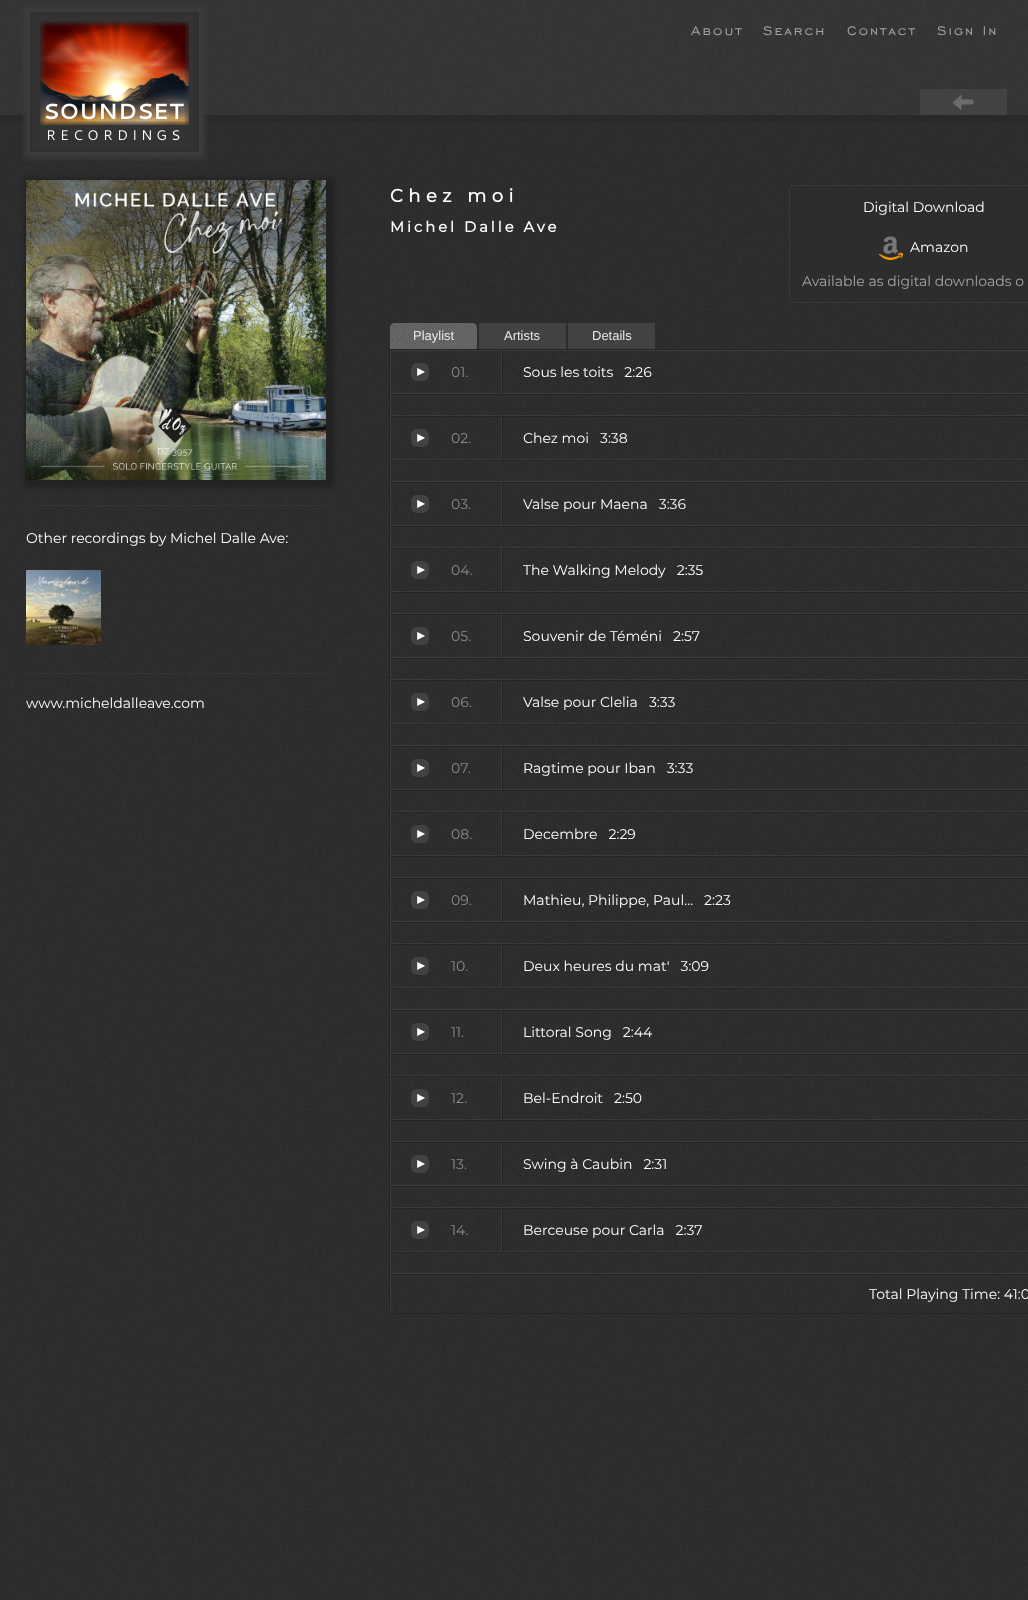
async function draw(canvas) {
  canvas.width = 1028
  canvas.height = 1600
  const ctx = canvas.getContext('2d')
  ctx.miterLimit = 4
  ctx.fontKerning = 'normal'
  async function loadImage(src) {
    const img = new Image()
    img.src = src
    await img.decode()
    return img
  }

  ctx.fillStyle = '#2a2a2a'
  ctx.fillRect(0, 0, 1028, 1600)
  ctx.drawImage(await loadImage('image0.png'), 0, 115, 1028, 1485)
  ctx.fillStyle = '#333'
  ctx.fillRect(0, 0, 1028, 115)
  ctx.drawImage(await loadImage('image1.png'), 0, 0, 1028, 115)
  ctx.drawImage(await loadImage('image4.png'), 0, 115, 1028, 8)
  ctx.fillStyle = '#3c3c3c'
  ctx.filter = 'blur(2.5px)'
  ctx.beginPath()
  ctx.rect(24, 6, 181, 152)
  ctx.fill()
  ctx.filter = 'none'
  ctx.fillStyle = '#333'
  ctx.beginPath()
  ctx.rect(31.5, 13.5, 166, 137)
  ctx.fill()
  ctx.strokeStyle = '#303030'
  ctx.lineWidth = 3
  ctx.stroke()
  ctx.drawImage(await loadImage('image2.png'), 40, 21, 149, 120)
  ctx.letterSpacing = '2px'
  ctx.font = '16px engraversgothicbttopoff'
  ctx.fillStyle = '#a5a5a5'
  ctx.fillText('About', 691, 35)
  ctx.fillText('Search', 763, 35)
  ctx.fillText('Contact', 847, 35)
  ctx.fillText('Sign In', 937, 35)
  ctx.fillStyle = '#444444ed'
  ctx.fillRect(920, 89, 87, 26)
  ctx.drawImage(await loadImage('image3.png'), 953, 95, 21, 15)
  ctx.fillStyle = '#222'
  ctx.filter = 'blur(2.5px)'
  ctx.beginPath()
  ctx.rect(24, 178, 310, 310)
  ctx.fill()
  ctx.filter = 'none'
  ctx.drawImage(await loadImage('image5.png'), 26, 180, 300, 300)
  ctx.fillStyle = '#ffffff0a'
  ctx.fillRect(26, 505, 300, 1)
  ctx.letterSpacing = '0px'
  ctx.font = '100 14px Montserrat'
  ctx.fillStyle = '#fff'
  ctx.fillText('Other recordings by Michel Dalle Ave:', 26, 543)
  ctx.drawImage(await loadImage('image6.png'), 26, 570, 75, 75)
  ctx.fillStyle = '#ffffff0a'
  ctx.fillRect(26, 673, 300, 1)
  ctx.fillStyle = '#fff'
  ctx.fillText('www.micheldalleave.com', 26, 708)
  ctx.letterSpacing = '5.5px'
  ctx.font = 'bold 18px Montserrat'
  ctx.fillText('Chez moi', 390, 202)
  ctx.letterSpacing = '3px'
  ctx.font = 'bold 14.75px Montserrat'
  ctx.fillText('Michel Dalle Ave', 390, 232)
  ctx.fillStyle = '#2d2d2d'
  ctx.beginPath()
  ctx.roundRect(789.5, 185.5, 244, 117, 4.5)
  ctx.fill()
  ctx.strokeStyle = '#3a3a3a'
  ctx.lineWidth = 1
  ctx.stroke()
  ctx.letterSpacing = '0px'
  ctx.font = '100 14px Montserrat'
  ctx.fillStyle = '#fff'
  ctx.fillText('Digital Download', 863, 212)
  ctx.drawImage(await loadImage('image7.png'), 879, 236, 24, 24)
  ctx.fillText('Amazon', 910, 252)
  ctx.fillStyle = '#a5a5a5'
  ctx.fillText('Available as digital downloads o', 802, 286)
  ctx.drawImage(await loadImage('image8.png'), 390, 323, 87, 26)
  ctx.font = '13px Liberation Sans'
  ctx.fillStyle = '#e7e7e7'
  ctx.fillText('Playlist', 413, 340)
  ctx.fillStyle = '#444444ed'
  ctx.fillRect(479, 323, 87, 26)
  ctx.fillStyle = '#e7e7e7'
  ctx.fillText('Artists', 504, 340)
  ctx.fillStyle = '#444444ed'
  ctx.fillRect(568, 323, 87, 26)
  ctx.fillStyle = '#e7e7e7'
  ctx.fillText('Details', 592, 340)
  ctx.strokeStyle = '#242424'
  ctx.strokeRect(389.5, 349.5, 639, 964)
  ctx.fillStyle = '#3b3b3b'
  ctx.fillRect(390, 350, 638, 1)
  ctx.fillRect(390, 393, 61, 1)
  ctx.fillRect(390, 350, 1, 44)
  ctx.fillStyle = '#424242'
  ctx.beginPath()
  ctx.roundRect(411, 363, 18, 18, 6)
  ctx.fill()
  ctx.drawImage(await loadImage('image9.png'), 417, 368, 8, 8)
  ctx.fillStyle = '#3b3b3b'
  ctx.fillRect(501, 350, 1, 44)
  ctx.fillRect(451, 393, 577, 1)
  ctx.font = '100 14px Montserrat'
  ctx.fillStyle = '#8a8a8a'
  ctx.fillText('01.', 451, 377)
  ctx.fillStyle = '#222'
  ctx.fillRect(502, 350, 1, 44)
  ctx.fillStyle = '#fff'
  ctx.fillText('Sous les toits   2:26', 523, 377)
  ctx.fillStyle = '#242424'
  ctx.fillRect(390, 394, 638, 1)
  ctx.fillStyle = '#3b3b3b'
  ctx.fillRect(390, 415, 638, 1)
  ctx.fillRect(390, 394, 1, 22)
  ctx.fillStyle = '#242424'
  ctx.fillRect(390, 416, 638, 1)
  ctx.fillStyle = '#3b3b3b'
  ctx.fillRect(390, 459, 61, 1)
  ctx.fillRect(390, 416, 1, 44)
  ctx.fillStyle = '#424242'
  ctx.beginPath()
  ctx.roundRect(411, 429, 18, 18, 6)
  ctx.fill()
  ctx.drawImage(await loadImage('image9.png'), 417, 434, 8, 8)
  ctx.fillStyle = '#3b3b3b'
  ctx.fillRect(501, 416, 1, 44)
  ctx.fillRect(451, 459, 577, 1)
  ctx.fillStyle = '#8a8a8a'
  ctx.fillText('02.', 451, 443)
  ctx.fillStyle = '#222'
  ctx.fillRect(502, 416, 1, 44)
  ctx.fillStyle = '#fff'
  ctx.fillText('Chez moi   3:38', 523, 443)
  ctx.fillStyle = '#242424'
  ctx.fillRect(390, 460, 638, 1)
  ctx.fillStyle = '#3b3b3b'
  ctx.fillRect(390, 481, 638, 1)
  ctx.fillRect(390, 460, 1, 22)
  ctx.fillStyle = '#242424'
  ctx.fillRect(390, 482, 638, 1)
  ctx.fillStyle = '#3b3b3b'
  ctx.fillRect(390, 525, 61, 1)
  ctx.fillRect(390, 482, 1, 44)
  ctx.fillStyle = '#424242'
  ctx.beginPath()
  ctx.roundRect(411, 495, 18, 18, 6)
  ctx.fill()
  ctx.drawImage(await loadImage('image9.png'), 417, 500, 8, 8)
  ctx.fillStyle = '#3b3b3b'
  ctx.fillRect(501, 482, 1, 44)
  ctx.fillRect(451, 525, 577, 1)
  ctx.fillStyle = '#8a8a8a'
  ctx.fillText('03.', 451, 509)
  ctx.fillStyle = '#222'
  ctx.fillRect(502, 482, 1, 44)
  ctx.fillStyle = '#fff'
  ctx.fillText('Valse pour Maena   3:36', 523, 509)
  ctx.fillStyle = '#242424'
  ctx.fillRect(390, 526, 638, 1)
  ctx.fillStyle = '#3b3b3b'
  ctx.fillRect(390, 547, 638, 1)
  ctx.fillRect(390, 526, 1, 22)
  ctx.fillStyle = '#242424'
  ctx.fillRect(390, 548, 638, 1)
  ctx.fillStyle = '#3b3b3b'
  ctx.fillRect(390, 591, 61, 1)
  ctx.fillRect(390, 548, 1, 44)
  ctx.fillStyle = '#424242'
  ctx.beginPath()
  ctx.roundRect(411, 561, 18, 18, 6)
  ctx.fill()
  ctx.drawImage(await loadImage('image9.png'), 417, 566, 8, 8)
  ctx.fillStyle = '#3b3b3b'
  ctx.fillRect(501, 548, 1, 44)
  ctx.fillRect(451, 591, 577, 1)
  ctx.fillStyle = '#8a8a8a'
  ctx.fillText('04.', 451, 575)
  ctx.fillStyle = '#222'
  ctx.fillRect(502, 548, 1, 44)
  ctx.fillStyle = '#fff'
  ctx.fillText('The Walking Melody   2:35', 523, 575)
  ctx.fillStyle = '#242424'
  ctx.fillRect(390, 592, 638, 1)
  ctx.fillStyle = '#3b3b3b'
  ctx.fillRect(390, 613, 638, 1)
  ctx.fillRect(390, 592, 1, 22)
  ctx.fillStyle = '#242424'
  ctx.fillRect(390, 614, 638, 1)
  ctx.fillStyle = '#3b3b3b'
  ctx.fillRect(390, 657, 61, 1)
  ctx.fillRect(390, 614, 1, 44)
  ctx.fillStyle = '#424242'
  ctx.beginPath()
  ctx.roundRect(411, 627, 18, 18, 6)
  ctx.fill()
  ctx.drawImage(await loadImage('image9.png'), 417, 632, 8, 8)
  ctx.fillStyle = '#3b3b3b'
  ctx.fillRect(501, 614, 1, 44)
  ctx.fillRect(451, 657, 577, 1)
  ctx.fillStyle = '#8a8a8a'
  ctx.fillText('05.', 451, 641)
  ctx.fillStyle = '#222'
  ctx.fillRect(502, 614, 1, 44)
  ctx.fillStyle = '#fff'
  ctx.fillText('Souvenir de Téméni   2:57', 523, 641)
  ctx.fillStyle = '#242424'
  ctx.fillRect(390, 658, 638, 1)
  ctx.fillStyle = '#3b3b3b'
  ctx.fillRect(390, 679, 638, 1)
  ctx.fillRect(390, 658, 1, 22)
  ctx.fillStyle = '#242424'
  ctx.fillRect(390, 680, 638, 1)
  ctx.fillStyle = '#3b3b3b'
  ctx.fillRect(390, 723, 61, 1)
  ctx.fillRect(390, 680, 1, 44)
  ctx.fillStyle = '#424242'
  ctx.beginPath()
  ctx.roundRect(411, 693, 18, 18, 6)
  ctx.fill()
  ctx.drawImage(await loadImage('image9.png'), 417, 698, 8, 8)
  ctx.fillStyle = '#3b3b3b'
  ctx.fillRect(501, 680, 1, 44)
  ctx.fillRect(451, 723, 577, 1)
  ctx.fillStyle = '#8a8a8a'
  ctx.fillText('06.', 451, 707)
  ctx.fillStyle = '#222'
  ctx.fillRect(502, 680, 1, 44)
  ctx.fillStyle = '#fff'
  ctx.fillText('Valse pour Clelia   3:33', 523, 707)
  ctx.fillStyle = '#242424'
  ctx.fillRect(390, 724, 638, 1)
  ctx.fillStyle = '#3b3b3b'
  ctx.fillRect(390, 745, 638, 1)
  ctx.fillRect(390, 724, 1, 22)
  ctx.fillStyle = '#242424'
  ctx.fillRect(390, 746, 638, 1)
  ctx.fillStyle = '#3b3b3b'
  ctx.fillRect(390, 789, 61, 1)
  ctx.fillRect(390, 746, 1, 44)
  ctx.fillStyle = '#424242'
  ctx.beginPath()
  ctx.roundRect(411, 759, 18, 18, 6)
  ctx.fill()
  ctx.drawImage(await loadImage('image9.png'), 417, 764, 8, 8)
  ctx.fillStyle = '#3b3b3b'
  ctx.fillRect(501, 746, 1, 44)
  ctx.fillRect(451, 789, 577, 1)
  ctx.fillStyle = '#8a8a8a'
  ctx.fillText('07.', 451, 773)
  ctx.fillStyle = '#222'
  ctx.fillRect(502, 746, 1, 44)
  ctx.fillStyle = '#fff'
  ctx.fillText('Ragtime pour Iban   3:33', 523, 773)
  ctx.fillStyle = '#242424'
  ctx.fillRect(390, 790, 638, 1)
  ctx.fillStyle = '#3b3b3b'
  ctx.fillRect(390, 811, 638, 1)
  ctx.fillRect(390, 790, 1, 22)
  ctx.fillStyle = '#242424'
  ctx.fillRect(390, 812, 638, 1)
  ctx.fillStyle = '#3b3b3b'
  ctx.fillRect(390, 855, 61, 1)
  ctx.fillRect(390, 812, 1, 44)
  ctx.fillStyle = '#424242'
  ctx.beginPath()
  ctx.roundRect(411, 825, 18, 18, 6)
  ctx.fill()
  ctx.drawImage(await loadImage('image9.png'), 417, 830, 8, 8)
  ctx.fillStyle = '#3b3b3b'
  ctx.fillRect(501, 812, 1, 44)
  ctx.fillRect(451, 855, 577, 1)
  ctx.fillStyle = '#8a8a8a'
  ctx.fillText('08.', 451, 839)
  ctx.fillStyle = '#222'
  ctx.fillRect(502, 812, 1, 44)
  ctx.fillStyle = '#fff'
  ctx.fillText('Decembre   2:29', 523, 839)
  ctx.fillStyle = '#242424'
  ctx.fillRect(390, 856, 638, 1)
  ctx.fillStyle = '#3b3b3b'
  ctx.fillRect(390, 877, 638, 1)
  ctx.fillRect(390, 856, 1, 22)
  ctx.fillStyle = '#242424'
  ctx.fillRect(390, 878, 638, 1)
  ctx.fillStyle = '#3b3b3b'
  ctx.fillRect(390, 921, 61, 1)
  ctx.fillRect(390, 878, 1, 44)
  ctx.fillStyle = '#424242'
  ctx.beginPath()
  ctx.roundRect(411, 891, 18, 18, 6)
  ctx.fill()
  ctx.drawImage(await loadImage('image9.png'), 417, 896, 8, 8)
  ctx.fillStyle = '#3b3b3b'
  ctx.fillRect(501, 878, 1, 44)
  ctx.fillRect(451, 921, 577, 1)
  ctx.fillStyle = '#8a8a8a'
  ctx.fillText('09.', 451, 905)
  ctx.fillStyle = '#222'
  ctx.fillRect(502, 878, 1, 44)
  ctx.fillStyle = '#fff'
  ctx.fillText('Mathieu, Philippe, Paul...   2:23', 523, 905)
  ctx.fillStyle = '#242424'
  ctx.fillRect(390, 922, 638, 1)
  ctx.fillStyle = '#3b3b3b'
  ctx.fillRect(390, 943, 638, 1)
  ctx.fillRect(390, 922, 1, 22)
  ctx.fillStyle = '#242424'
  ctx.fillRect(390, 944, 638, 1)
  ctx.fillStyle = '#3b3b3b'
  ctx.fillRect(390, 987, 61, 1)
  ctx.fillRect(390, 944, 1, 44)
  ctx.fillStyle = '#424242'
  ctx.beginPath()
  ctx.roundRect(411, 957, 18, 18, 6)
  ctx.fill()
  ctx.drawImage(await loadImage('image9.png'), 417, 962, 8, 8)
  ctx.fillStyle = '#3b3b3b'
  ctx.fillRect(501, 944, 1, 44)
  ctx.fillRect(451, 987, 577, 1)
  ctx.fillStyle = '#8a8a8a'
  ctx.fillText('10.', 451, 971)
  ctx.fillStyle = '#222'
  ctx.fillRect(502, 944, 1, 44)
  ctx.fillStyle = '#fff'
  ctx.fillText('Deux heures du mat\'   3:09', 523, 971)
  ctx.fillStyle = '#242424'
  ctx.fillRect(390, 988, 638, 1)
  ctx.fillStyle = '#3b3b3b'
  ctx.fillRect(390, 1009, 638, 1)
  ctx.fillRect(390, 988, 1, 22)
  ctx.fillStyle = '#242424'
  ctx.fillRect(390, 1010, 638, 1)
  ctx.fillStyle = '#3b3b3b'
  ctx.fillRect(390, 1053, 61, 1)
  ctx.fillRect(390, 1010, 1, 44)
  ctx.fillStyle = '#424242'
  ctx.beginPath()
  ctx.roundRect(411, 1023, 18, 18, 6)
  ctx.fill()
  ctx.drawImage(await loadImage('image9.png'), 417, 1028, 8, 8)
  ctx.fillStyle = '#3b3b3b'
  ctx.fillRect(501, 1010, 1, 44)
  ctx.fillRect(451, 1053, 577, 1)
  ctx.fillStyle = '#8a8a8a'
  ctx.fillText('11.', 451, 1037)
  ctx.fillStyle = '#222'
  ctx.fillRect(502, 1010, 1, 44)
  ctx.fillStyle = '#fff'
  ctx.fillText('Littoral Song   2:44', 523, 1037)
  ctx.fillStyle = '#242424'
  ctx.fillRect(390, 1054, 638, 1)
  ctx.fillStyle = '#3b3b3b'
  ctx.fillRect(390, 1075, 638, 1)
  ctx.fillRect(390, 1054, 1, 22)
  ctx.fillStyle = '#242424'
  ctx.fillRect(390, 1076, 638, 1)
  ctx.fillStyle = '#3b3b3b'
  ctx.fillRect(390, 1119, 61, 1)
  ctx.fillRect(390, 1076, 1, 44)
  ctx.fillStyle = '#424242'
  ctx.beginPath()
  ctx.roundRect(411, 1089, 18, 18, 6)
  ctx.fill()
  ctx.drawImage(await loadImage('image9.png'), 417, 1094, 8, 8)
  ctx.fillStyle = '#3b3b3b'
  ctx.fillRect(501, 1076, 1, 44)
  ctx.fillRect(451, 1119, 577, 1)
  ctx.fillStyle = '#8a8a8a'
  ctx.fillText('12.', 451, 1103)
  ctx.fillStyle = '#222'
  ctx.fillRect(502, 1076, 1, 44)
  ctx.fillStyle = '#fff'
  ctx.fillText('Bel-Endroit   2:50', 523, 1103)
  ctx.fillStyle = '#242424'
  ctx.fillRect(390, 1120, 638, 1)
  ctx.fillStyle = '#3b3b3b'
  ctx.fillRect(390, 1141, 638, 1)
  ctx.fillRect(390, 1120, 1, 22)
  ctx.fillStyle = '#242424'
  ctx.fillRect(390, 1142, 638, 1)
  ctx.fillStyle = '#3b3b3b'
  ctx.fillRect(390, 1185, 61, 1)
  ctx.fillRect(390, 1142, 1, 44)
  ctx.fillStyle = '#424242'
  ctx.beginPath()
  ctx.roundRect(411, 1155, 18, 18, 6)
  ctx.fill()
  ctx.drawImage(await loadImage('image9.png'), 417, 1160, 8, 8)
  ctx.fillStyle = '#3b3b3b'
  ctx.fillRect(501, 1142, 1, 44)
  ctx.fillRect(451, 1185, 577, 1)
  ctx.fillStyle = '#8a8a8a'
  ctx.fillText('13.', 451, 1169)
  ctx.fillStyle = '#222'
  ctx.fillRect(502, 1142, 1, 44)
  ctx.fillStyle = '#fff'
  ctx.fillText('Swing à Caubin   2:31', 523, 1169)
  ctx.fillStyle = '#242424'
  ctx.fillRect(390, 1186, 638, 1)
  ctx.fillStyle = '#3b3b3b'
  ctx.fillRect(390, 1207, 638, 1)
  ctx.fillRect(390, 1186, 1, 22)
  ctx.fillStyle = '#242424'
  ctx.fillRect(390, 1208, 638, 1)
  ctx.fillStyle = '#3b3b3b'
  ctx.fillRect(390, 1251, 61, 1)
  ctx.fillRect(390, 1208, 1, 44)
  ctx.fillStyle = '#424242'
  ctx.beginPath()
  ctx.roundRect(411, 1221, 18, 18, 6)
  ctx.fill()
  ctx.drawImage(await loadImage('image9.png'), 417, 1226, 8, 8)
  ctx.fillStyle = '#3b3b3b'
  ctx.fillRect(501, 1208, 1, 44)
  ctx.fillRect(451, 1251, 577, 1)
  ctx.fillStyle = '#8a8a8a'
  ctx.fillText('14.', 451, 1235)
  ctx.fillStyle = '#222'
  ctx.fillRect(502, 1208, 1, 44)
  ctx.fillStyle = '#fff'
  ctx.fillText('Berceuse pour Carla   2:37', 523, 1235)
  ctx.fillStyle = '#242424'
  ctx.fillRect(390, 1252, 638, 1)
  ctx.fillStyle = '#3b3b3b'
  ctx.fillRect(390, 1273, 638, 1)
  ctx.fillRect(390, 1252, 1, 22)
  ctx.fillStyle = '#242424'
  ctx.fillRect(390, 1274, 638, 1)
  ctx.fillStyle = '#3b3b3b'
  ctx.fillRect(390, 1274, 1, 39)
  ctx.fillStyle = '#fff'
  ctx.fillText('Total Playing Time: 41:0', 869, 1299)
}

draw(document.querySelector('canvas'))
